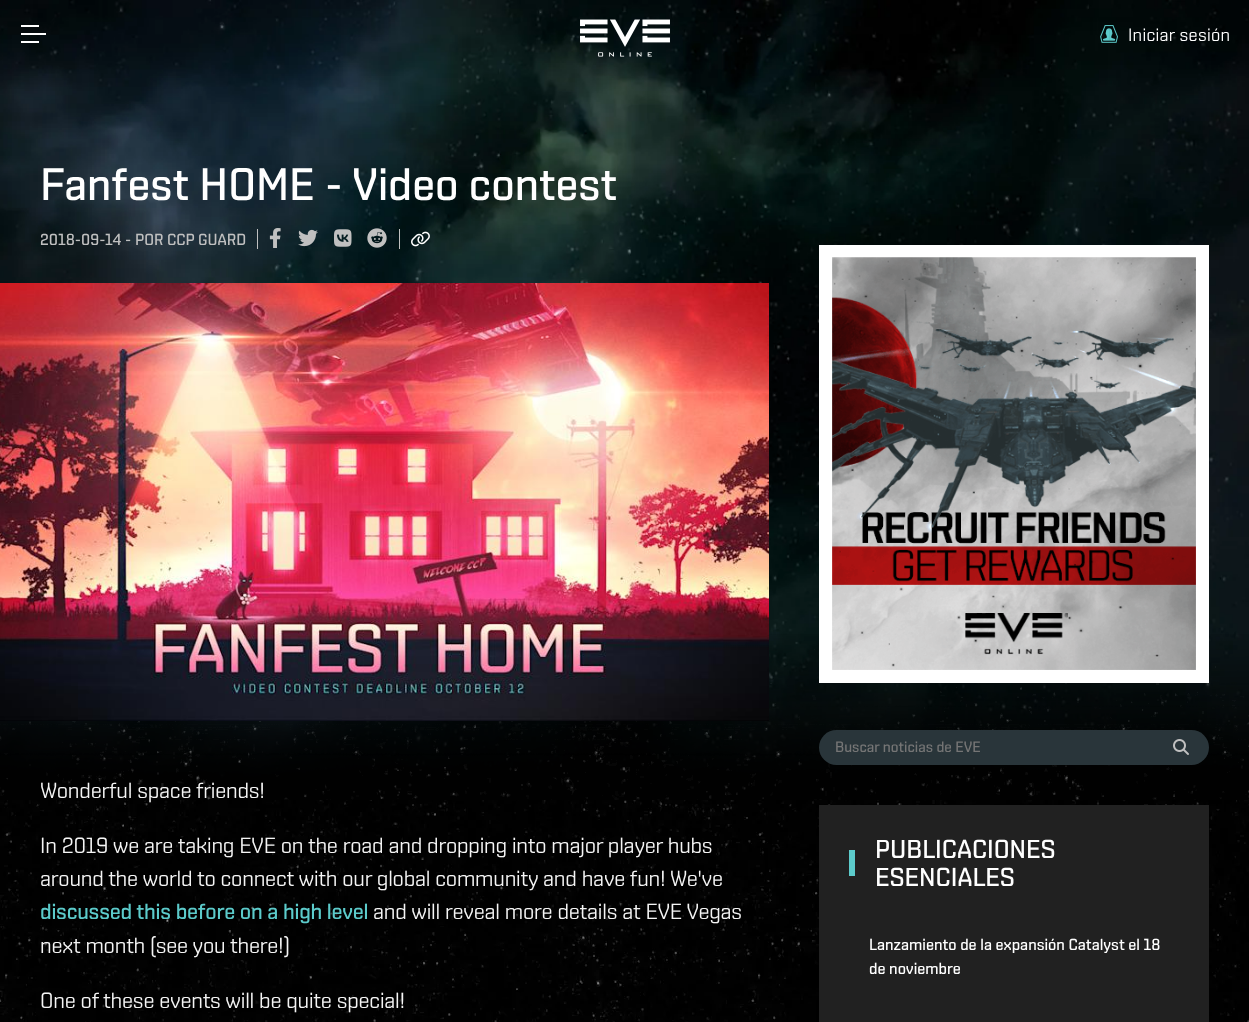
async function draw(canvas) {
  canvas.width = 1249
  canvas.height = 1022
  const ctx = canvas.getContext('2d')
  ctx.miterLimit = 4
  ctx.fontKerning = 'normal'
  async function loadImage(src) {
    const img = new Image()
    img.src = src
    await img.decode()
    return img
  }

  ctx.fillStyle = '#fff'
  ctx.fillRect(0, 0, 1249, 1022)
  ctx.drawImage(await loadImage('image3.png'), 0, 0, 1249, 800)
  ctx.fillRect(21, 25, 18, 2)
  ctx.fillRect(21, 33, 25, 2)
  ctx.fillRect(21, 41, 18, 2)
  ctx.drawImage(await loadImage('image0.png'), 580, 19, 90, 38)
  ctx.drawImage(await loadImage('image1.png'), 1100, 25, 18, 18)
  ctx.letterSpacing = '0.25px'
  ctx.font = '18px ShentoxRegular'
  ctx.fillText('Iniciar sesión', 1128, 41)
  ctx.drawImage(await loadImage('image2.png'), 0, 800, 1249, 222)
  ctx.drawImage(await loadImage('image4.png'), 0, 634, 1249, 166)
  ctx.letterSpacing = '0px'
  ctx.font = '500 45.5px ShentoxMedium'
  ctx.fillText('Fanfest HOME - Video contest', 40, 200)
  ctx.font = '500 16px ShentoxMedium'
  ctx.fillStyle = '#c0c0c0'
  ctx.fillText('2018-09-14 - POR CCP GUARD', 40, 245)
  ctx.fillRect(257, 229, 1, 20)
  ctx.drawImage(await loadImage('image5.png'), 269, 228, 12, 20)
  ctx.drawImage(await loadImage('image6.png'), 298, 229, 20, 18)
  ctx.drawImage(await loadImage('image7.png'), 334, 229, 18, 18)
  ctx.drawImage(await loadImage('image8.png'), 367, 228, 20, 20)
  ctx.fillRect(399, 229, 1, 20)
  ctx.drawImage(await loadImage('image9.png'), 411, 231, 19, 16)
  ctx.drawImage(await loadImage('image10.png'), 0, 283, 769, 438)
  ctx.letterSpacing = '-0.22px'
  ctx.font = '22px ShentoxRegular'
  ctx.fillStyle = '#f5f5f5'
  ctx.fillText('Wonderful space friends!', 40, 798)
  ctx.fillText('In 2019 we are taking EVE on the road and dropping into major player hubs', 40, 853)
  ctx.fillText('around the world to connect with our global community and have fun! We\'ve', 40, 886)
  ctx.font = '500 22px ShentoxMedium'
  ctx.fillStyle = '#5ccbcb'
  ctx.fillText('discussed this before on a high level', 40, 919)
  ctx.font = '22px ShentoxRegular'
  ctx.fillStyle = '#f5f5f5'
  ctx.fillText('and will reveal more details at EVE Vegas', 373, 919)
  ctx.fillText('next month (see you there!)', 40, 953)
  ctx.fillText('One of these events will be quite special!', 40, 1008)
  ctx.drawImage(await loadImage('image11.png'), 819, 245, 390, 438)
  ctx.fillStyle = '#29353a'
  ctx.beginPath()
  ctx.roundRect(819, 730, 390, 35, 17.5)
  ctx.fill()
  ctx.letterSpacing = '0px'
  ctx.font = '500 15px ShentoxMedium'
  ctx.fillStyle = '#757575'
  ctx.fillText('Buscar noticias de EVE', 835, 752)
  ctx.drawImage(await loadImage('image12.png'), 1173, 739, 16, 16)
  ctx.fillStyle = '#212121'
  ctx.beginPath()
  ctx.moveTo(819, 805)
  ctx.lineTo(819, 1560)
  ctx.lineTo(864, 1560)
  ctx.lineTo(868, 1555)
  ctx.lineTo(923, 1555)
  ctx.lineTo(927, 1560)
  ctx.lineTo(1209, 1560)
  ctx.lineTo(1209, 805)
  ctx.closePath()
  ctx.fill()
  ctx.fillStyle = '#5ccbcb'
  ctx.fillRect(849, 850, 6, 26)
  ctx.font = '500 26px ShentoxMedium'
  ctx.fillStyle = '#fff'
  ctx.fillText('PUBLICACIONES', 875, 858)
  ctx.fillText('ESENCIALES', 875, 886)
  ctx.font = '500 16px ShentoxMedium'
  ctx.fillText('Lanzamiento de la expansión Catalyst el 18', 869, 950)
  ctx.fillText('de noviembre', 869, 974)
}

draw(document.querySelector('canvas'))
